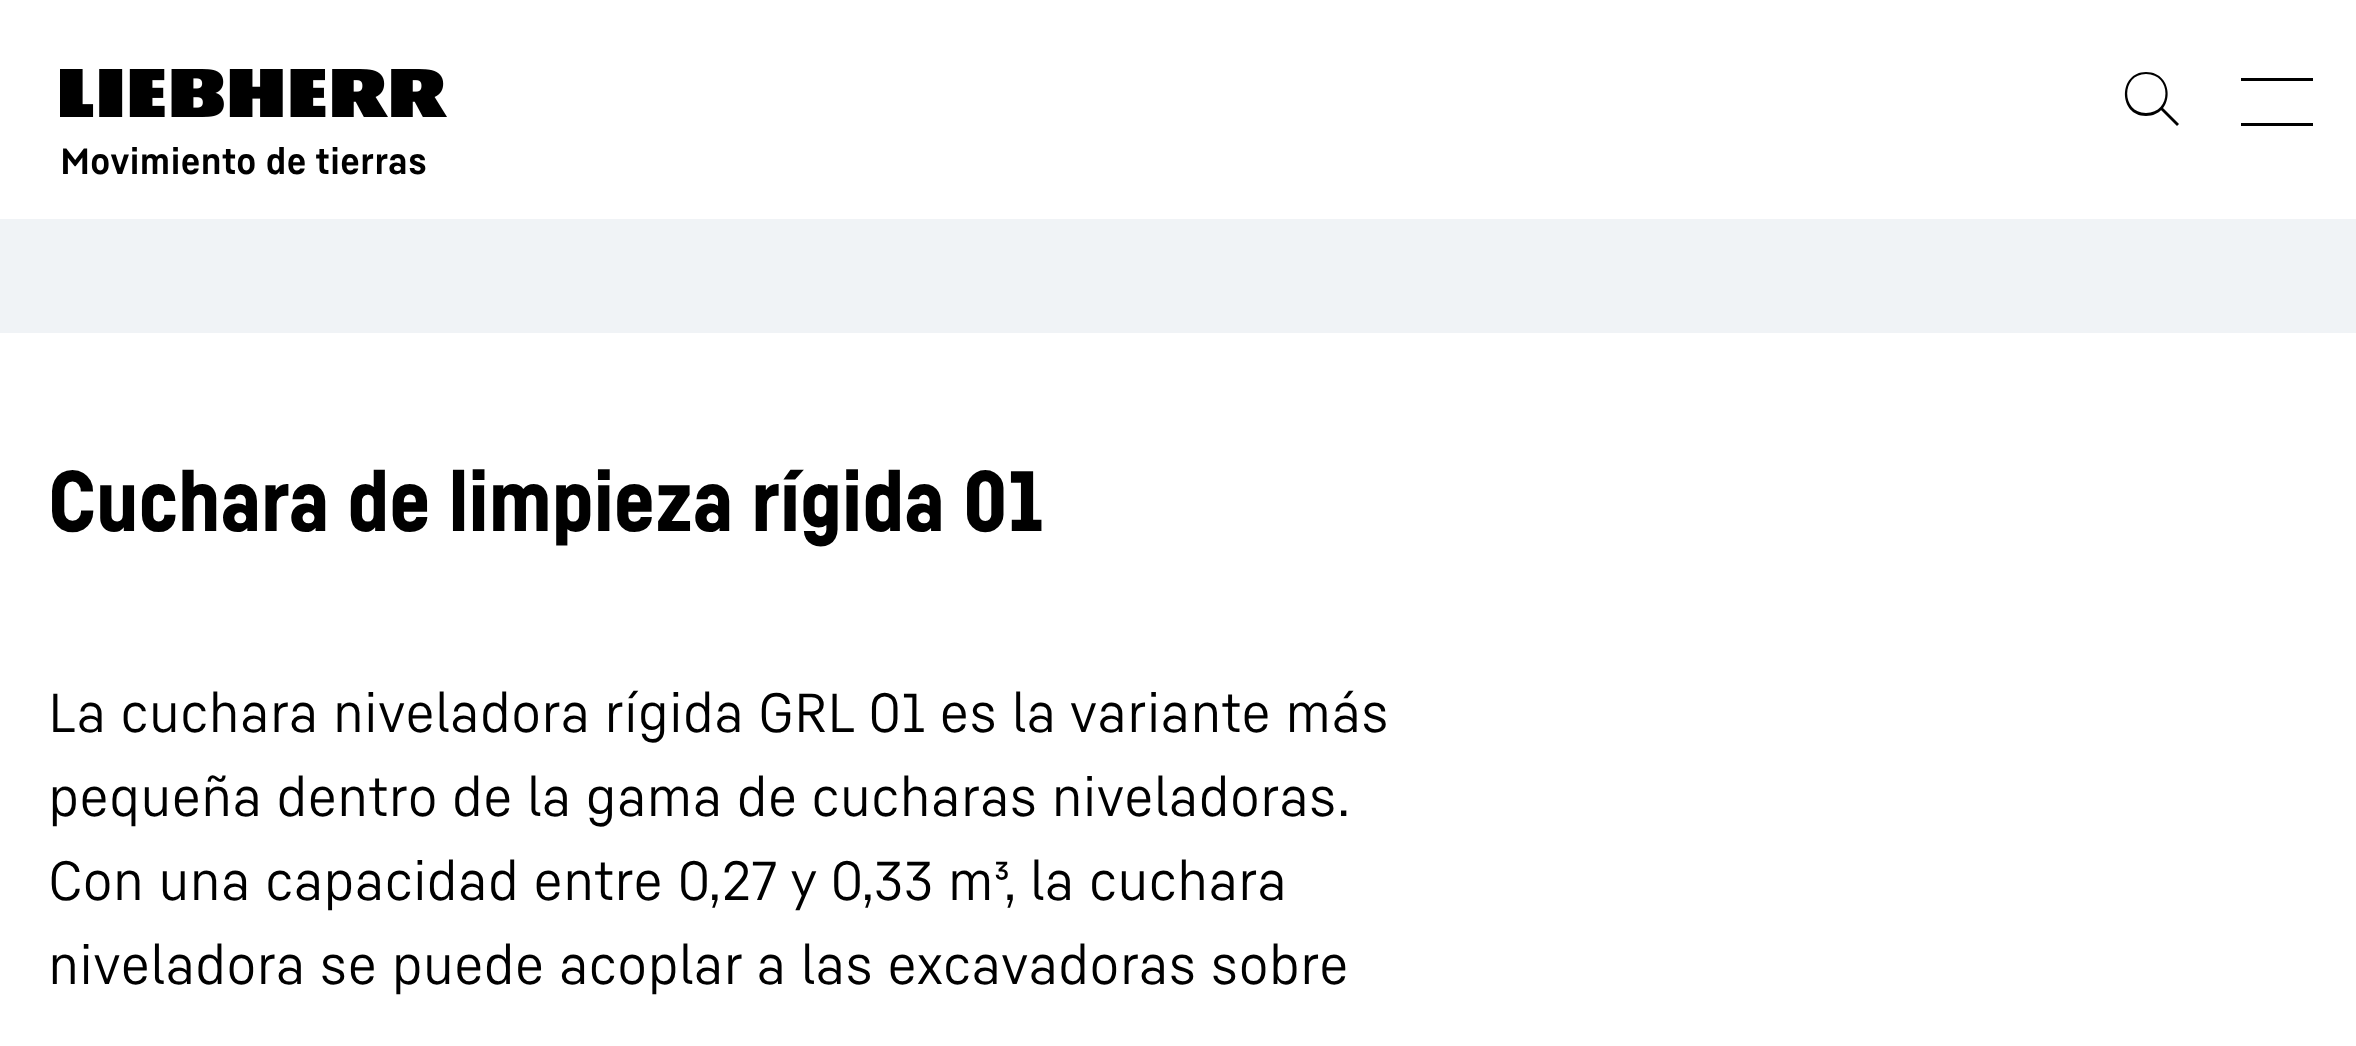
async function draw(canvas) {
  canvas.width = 2356
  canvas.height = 1046
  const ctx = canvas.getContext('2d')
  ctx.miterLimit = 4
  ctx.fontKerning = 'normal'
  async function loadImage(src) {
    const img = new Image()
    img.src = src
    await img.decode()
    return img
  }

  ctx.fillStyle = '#fff'
  ctx.fillRect(0, 0, 2356, 1046)
  ctx.drawImage(await loadImage('image0.png'), 60, 69, 387, 48)
  ctx.fillStyle = '#000'
  ctx.beginPath()
  ctx.moveTo(2146, 116)
  ctx.bezierCurveTo(2118, 116, 2118, 72, 2146, 72)
  ctx.bezierCurveTo(2175, 72, 2175, 116, 2146, 116)
  ctx.closePath()
  ctx.moveTo(2146, 74)
  ctx.bezierCurveTo(2121, 74, 2121, 113, 2146, 113)
  ctx.bezierCurveTo(2172, 113, 2172, 74, 2146, 74)
  ctx.closePath()
  ctx.moveTo(2160, 109)
  ctx.lineTo(2162, 107)
  ctx.lineTo(2179, 124)
  ctx.lineTo(2177, 126)
  ctx.closePath()
  ctx.fill()
  ctx.fillRect(2241, 78, 72, 3)
  ctx.fillRect(2241, 123, 72, 3)
  ctx.font = 'bold 36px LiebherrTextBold'
  ctx.fillText('Movimiento de tierras', 60, 174)
  ctx.fillStyle = '#f0f3f6'
  ctx.fillRect(0, 219, 2356, 114)
  ctx.font = '900 84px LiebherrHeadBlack'
  ctx.fillStyle = '#000'
  ctx.fillText('Cuchara de limpieza rígida 01', 48, 531)
  ctx.font = '54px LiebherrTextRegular'
  ctx.fillText('La cuchara niveladora rígida GRL 01 es la variante más', 48, 732)
  ctx.wordSpacing = '-0.25px'
  ctx.fillText('pequeña dentro de la gama de cucharas niveladoras.', 48, 816)
  ctx.wordSpacing = '0px'
  ctx.fillText('Con una capacidad entre 0,27 y 0,33 m³, la cuchara', 48, 900)
  ctx.fillText('niveladora se puede acoplar a las excavadoras sobre', 48, 984)
}

draw(document.querySelector('canvas'))
